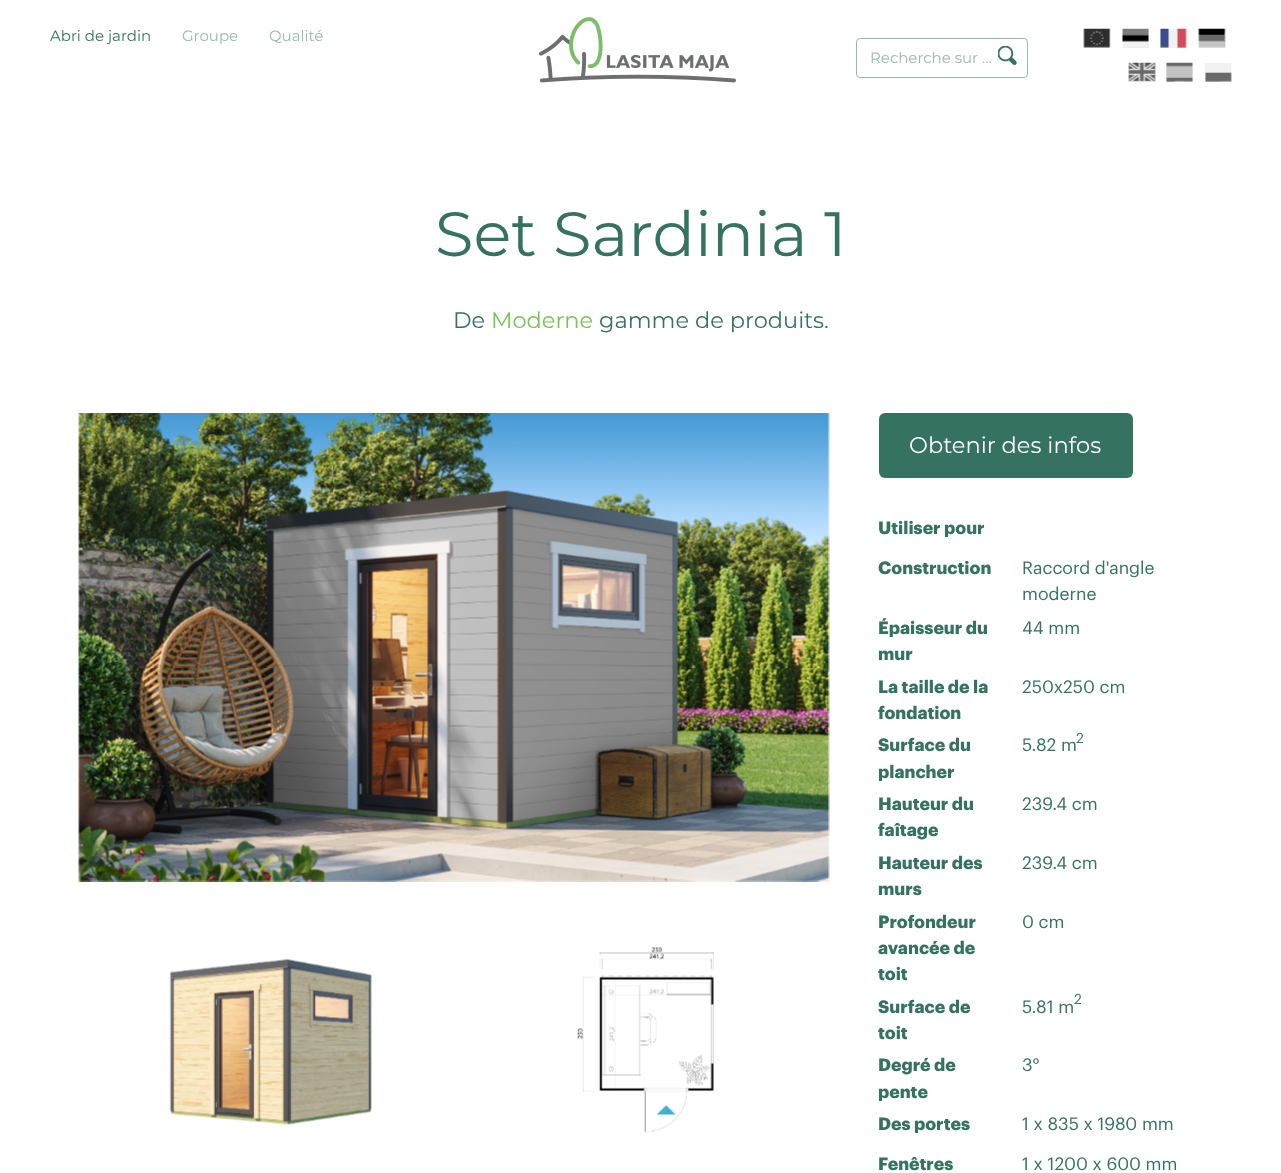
async function draw(canvas) {
  canvas.width = 1281
  canvas.height = 1173
  const ctx = canvas.getContext('2d')
  ctx.miterLimit = 4
  ctx.fontKerning = 'normal'
  async function loadImage(src) {
    const img = new Image()
    img.src = src
    await img.decode()
    return img
  }

  ctx.fillStyle = '#fff'
  ctx.fillRect(0, 0, 1281, 1173)
  ctx.fillStyle = '#f2f2f2'
  ctx.fillRect(1205, 63, 26, 18)
  ctx.fillRect(1166, 63, 27, 18)
  ctx.fillRect(1160, 29, 26, 19)
  ctx.fillRect(1123, 29, 26, 19)
  ctx.font = '15px Montserrat'
  ctx.fillStyle = '#357261'
  ctx.fillText('Abri de jardin', 50, 41)
  ctx.fillStyle = '#9ab9b0'
  ctx.fillText('Groupe', 182, 41)
  ctx.fillText('Qualité', 269, 41)
  ctx.drawImage(await loadImage('image0.png'), 539, 17, 197, 66)
  ctx.beginPath()
  ctx.roundRect(856.5, 38.5, 171, 39, 3.5)
  ctx.strokeStyle = '#9ab9b0'
  ctx.stroke()
  ctx.fillText('Recherche sur …', 870, 63)
  ctx.drawImage(await loadImage('image1.png'), 998, 46, 19, 19)
  ctx.drawImage(await loadImage('image2.png'), 1083, 28, 28, 20)
  ctx.fillStyle = '#0000000d'
  ctx.fillRect(1084, 29, 26, 19)
  ctx.drawImage(await loadImage('image3.png'), 1122, 28, 27, 20)
  ctx.drawImage(await loadImage('image4.png'), 1160, 28, 27, 20)
  ctx.drawImage(await loadImage('image5.png'), 1198, 28, 28, 20)
  ctx.fillRect(1199, 29, 26, 19)
  ctx.drawImage(await loadImage('image6.png'), 1128, 62, 28, 20)
  ctx.fillRect(1129, 63, 26, 18)
  ctx.drawImage(await loadImage('image7.png'), 1166, 62, 27, 20)
  ctx.drawImage(await loadImage('image8.png'), 1205, 63, 27, 19)
  ctx.font = '62.5px Montserrat'
  ctx.fillStyle = '#357261'
  ctx.fillText('Set Sardinia 1', 435, 256)
  ctx.font = '22.5px Montserrat'
  ctx.fillText('De', 453, 328)
  ctx.fillStyle = '#78c258'
  ctx.fillText('Moderne', 491, 328)
  ctx.fillStyle = '#357261'
  ctx.fillText('gamme de produits.', 599, 328)
  ctx.fillStyle = '#fbfbfb'
  ctx.fillRect(79, 413, 750, 468)
  ctx.drawImage(await loadImage('image9.png'), 78, 413, 752, 469)
  ctx.drawImage(await loadImage('image10.png'), 169, 958, 203, 167)
  ctx.drawImage(await loadImage('image11.png'), 577, 947, 137, 186)
  ctx.fillStyle = '#357261'
  ctx.beginPath()
  ctx.roundRect(879, 413, 254, 65, 6)
  ctx.fill()
  ctx.fillStyle = '#fff'
  ctx.fillText('Obtenir des infos', 909, 453)
  ctx.font = 'bold 17.5px Graphik'
  ctx.fillStyle = '#357261'
  ctx.fillText('Utiliser pour', 878, 534)
  ctx.fillText('Construction', 878, 574)
  ctx.font = '17.5px Graphik'
  ctx.fillText('Raccord d\'angle', 1022, 574)
  ctx.fillText('moderne', 1022, 600)
  ctx.font = 'bold 17.5px Graphik'
  ctx.fillText('Épaisseur du', 878, 634)
  ctx.fillText('mur', 878, 660)
  ctx.font = '17.5px Graphik'
  ctx.fillText('44 mm', 1022, 634)
  ctx.font = 'bold 17.5px Graphik'
  ctx.fillText('La taille de la', 878, 693)
  ctx.fillText('fondation', 878, 719)
  ctx.font = '17.5px Graphik'
  ctx.fillText('250x250 cm', 1022, 693)
  ctx.font = 'bold 17.5px Graphik'
  ctx.fillText('Surface du', 878, 751)
  ctx.fillText('plancher', 878, 778)
  ctx.font = '17.5px Graphik'
  ctx.fillText('5.82 m', 1022, 751)
  ctx.font = '14px Graphik'
  ctx.fillText('2', 1076, 743)
  ctx.font = 'bold 17.5px Graphik'
  ctx.fillText('Hauteur du', 878, 810)
  ctx.fillText('faîtage', 878, 836)
  ctx.font = '17.5px Graphik'
  ctx.fillText('239.4 cm', 1022, 810)
  ctx.font = 'bold 17.5px Graphik'
  ctx.fillText('Hauteur des', 878, 869)
  ctx.fillText('murs', 878, 895)
  ctx.font = '17.5px Graphik'
  ctx.fillText('239.4 cm', 1022, 869)
  ctx.font = 'bold 17.5px Graphik'
  ctx.fillText('Profondeur', 878, 928)
  ctx.fillText('avancée de', 878, 954)
  ctx.fillText('toit', 878, 980)
  ctx.font = '17.5px Graphik'
  ctx.fillText('0 cm', 1022, 928)
  ctx.font = 'bold 17.5px Graphik'
  ctx.fillText('Surface de', 878, 1013)
  ctx.fillText('toit', 878, 1039)
  ctx.font = '14px Graphik'
  ctx.fillText('2', 1074, 1004)
  ctx.font = '17.5px Graphik'
  ctx.fillText('5.81 m', 1022, 1013)
  ctx.font = 'bold 17.5px Graphik'
  ctx.fillText('Degré de', 878, 1071)
  ctx.fillText('pente', 878, 1098)
  ctx.font = '17.5px Graphik'
  ctx.fillText('3°', 1022, 1071)
  ctx.font = 'bold 17.5px Graphik'
  ctx.fillText('Des portes', 878, 1130)
  ctx.font = '17.5px Graphik'
  ctx.fillText('1 x 835 x 1980 mm', 1022, 1130)
  ctx.font = 'bold 17.5px Graphik'
  ctx.fillText('Fenêtres', 878, 1170)
  ctx.font = '17.5px Graphik'
  ctx.fillText('1 x 1200 x 600 mm', 1022, 1170)
}

draw(document.querySelector('canvas'))
